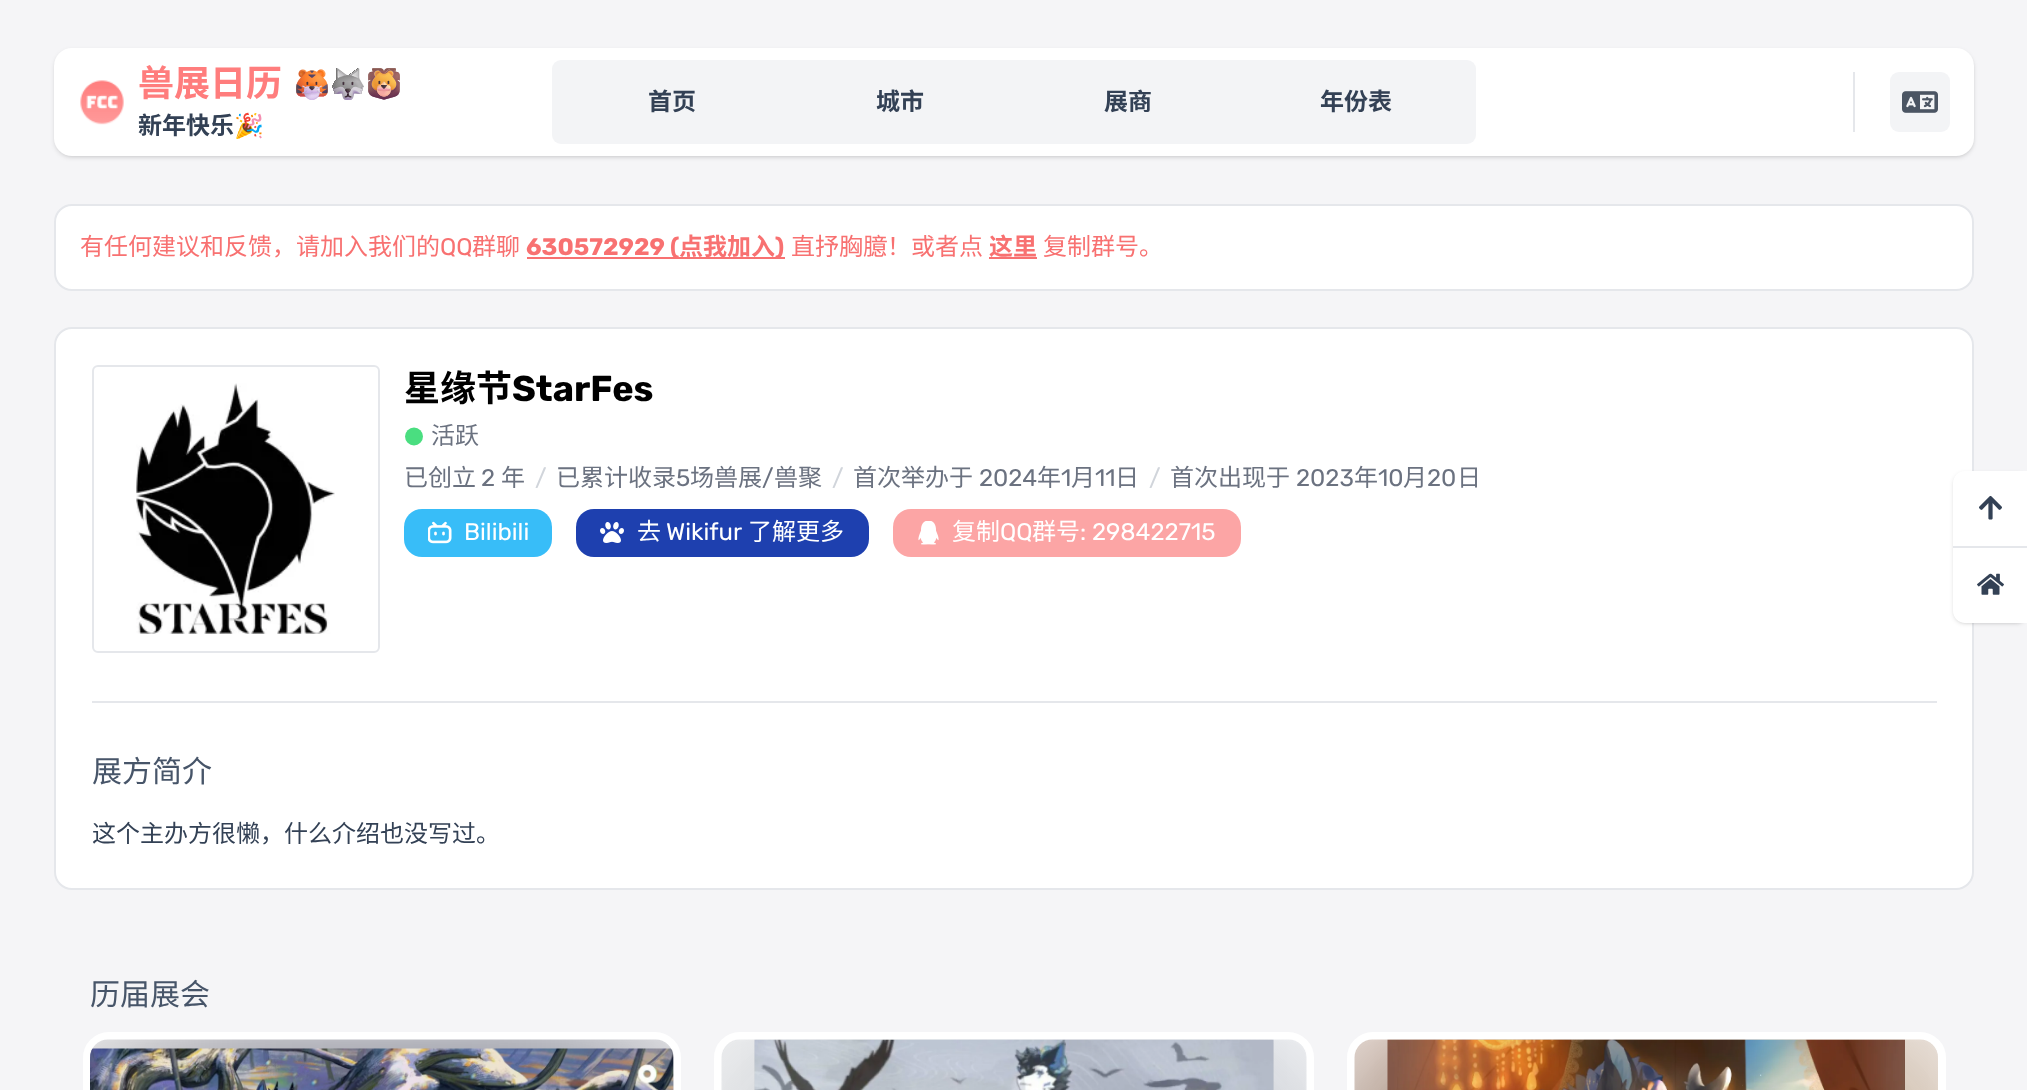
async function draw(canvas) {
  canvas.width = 2027
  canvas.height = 1090
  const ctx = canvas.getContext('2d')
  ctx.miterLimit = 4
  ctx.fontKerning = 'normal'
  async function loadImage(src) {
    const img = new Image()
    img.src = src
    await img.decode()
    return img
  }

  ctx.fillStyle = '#f5f5f7'
  ctx.fillRect(0, 0, 2027, 1090)
  ctx.fillStyle = '#0000001a'
  ctx.filter = 'blur(1.5px)'
  ctx.beginPath()
  ctx.roundRect(56, 51, 1917, 105, 17)
  ctx.fill()
  ctx.filter = 'none'
  ctx.filter = 'blur(2px)'
  ctx.beginPath()
  ctx.roundRect(54, 50, 1920, 108, 18)
  ctx.fill()
  ctx.filter = 'none'
  ctx.fillStyle = '#fff'
  ctx.beginPath()
  ctx.roundRect(54, 48, 1920, 108, 18)
  ctx.fill()
  ctx.drawImage(await loadImage('image0.png'), 80, 80, 44, 45)
  ctx.font = 'bold 36px Noto Sans SC'
  ctx.fillStyle = '#ff7d7d'
  ctx.fillText('兽展日历', 138, 96)
  ctx.drawImage(await loadImage('image1.png'), 296, 69, 32, 31)
  ctx.drawImage(await loadImage('image2.png'), 332, 68, 32, 32)
  ctx.drawImage(await loadImage('image3.png'), 368, 68, 32, 32)
  ctx.font = 'bold 24px Noto Sans SC'
  ctx.fillStyle = '#334155'
  ctx.fillText('新年快乐', 138, 134)
  ctx.font = 'bold 24px Noto Color Emoji'
  ctx.fillText('🎉', 234, 134)
  ctx.fillStyle = '#f3f4f6'
  ctx.beginPath()
  ctx.roundRect(552, 60, 924, 84, 9)
  ctx.fill()
  ctx.font = 'bold 24px Noto Sans SC'
  ctx.fillStyle = '#334155'
  ctx.fillText('首页', 648, 110)
  ctx.fillText('城市', 876, 110)
  ctx.fillText('展商', 1104, 110)
  ctx.fillText('年份表', 1320, 110)
  ctx.fillStyle = '#e5e7eb'
  ctx.fillRect(1853, 72, 2, 60)
  ctx.fillStyle = '#f3f4f6'
  ctx.beginPath()
  ctx.roundRect(1890, 72, 60, 60, 9)
  ctx.fill()
  ctx.drawImage(await loadImage('image4.png'), 1902, 91, 36, 22)
  ctx.fillStyle = '#fff'
  ctx.beginPath()
  ctx.roundRect(55, 205, 1918, 85, 17)
  ctx.fill()
  ctx.strokeStyle = '#e5e7eb'
  ctx.lineWidth = 2
  ctx.stroke()
  ctx.font = '24px Noto Sans SC'
  ctx.fillStyle = '#f87171'
  ctx.fillText('有任何建议和反馈，请加入我们的', 80, 255)
  ctx.font = '24px Rubik'
  ctx.fillText('QQ', 440, 255)
  ctx.font = '24px Noto Sans SC'
  ctx.fillText('群聊', 472, 255)
  ctx.fillRect(527, 257, 258, 2)
  ctx.font = 'bold 24px Rubik'
  ctx.fillText('630572929 (', 526, 255)
  ctx.font = 'bold 24px Noto Sans SC'
  ctx.fillText('点我加入', 679, 255)
  ctx.font = 'bold 24px Rubik'
  ctx.fillText(')', 775, 255)
  ctx.font = '24px Noto Sans SC'
  ctx.fillText('直抒胸臆！或者点', 791, 255)
  ctx.fillRect(989, 257, 48, 2)
  ctx.font = 'bold 24px Noto Sans SC'
  ctx.fillText('这里', 989, 255)
  ctx.font = '24px Noto Sans SC'
  ctx.fillText('复制群号。', 1043, 255)
  ctx.fillStyle = '#fff'
  ctx.beginPath()
  ctx.roundRect(55, 328, 1918, 561, 17)
  ctx.fill()
  ctx.stroke()
  ctx.beginPath()
  ctx.roundRect(93, 366, 286, 286, 5)
  ctx.stroke()
  ctx.drawImage(await loadImage('image5.png'), 136, 383, 199, 251)
  ctx.font = 'bold 36px Noto Sans SC'
  ctx.fillStyle = '#000'
  ctx.fillText('星缘节', 404, 401)
  ctx.font = 'bold 36px Rubik'
  ctx.fillText('StarFes', 512, 401)
  ctx.fillStyle = '#4ade80'
  ctx.beginPath()
  ctx.arc(414, 436.5, 9, 0, 2 * Math.PI)
  ctx.fill()
  ctx.font = '24px Noto Sans SC'
  ctx.fillStyle = '#6b7280'
  ctx.fillText('活跃', 431, 444)
  ctx.fillText('已创立', 404, 486)
  ctx.font = '24px Rubik'
  ctx.fillText('2', 481, 486)
  ctx.font = '24px Noto Sans SC'
  ctx.fillText('年', 501, 486)
  ctx.font = '24px Rubik'
  ctx.fillStyle = '#d1d5db'
  ctx.fillText('/', 535, 486)
  ctx.font = '24px Noto Sans SC'
  ctx.fillStyle = '#6b7280'
  ctx.fillText('已累计收录', 556, 486)
  ctx.font = '24px Rubik'
  ctx.fillText('5', 676, 486)
  ctx.font = '24px Noto Sans SC'
  ctx.fillText('场兽展', 690, 486)
  ctx.font = '24px Rubik'
  ctx.fillText('/', 762, 486)
  ctx.font = '24px Noto Sans SC'
  ctx.fillText('兽聚', 774, 486)
  ctx.font = '24px Rubik'
  ctx.fillStyle = '#d1d5db'
  ctx.fillText('/', 832, 486)
  ctx.font = '24px Noto Sans SC'
  ctx.fillStyle = '#6b7280'
  ctx.fillText('首次举办于', 853, 486)
  ctx.font = '24px Rubik'
  ctx.fillText('2024', 979, 486)
  ctx.font = '24px Noto Sans SC'
  ctx.fillText('年', 1037, 486)
  ctx.font = '24px Rubik'
  ctx.fillText('1', 1061, 486)
  ctx.font = '24px Noto Sans SC'
  ctx.fillText('月', 1071, 486)
  ctx.font = '24px Rubik'
  ctx.fillText('11', 1095, 486)
  ctx.font = '24px Noto Sans SC'
  ctx.fillText('日', 1115, 486)
  ctx.font = '24px Rubik'
  ctx.fillStyle = '#d1d5db'
  ctx.fillText('/', 1149, 486)
  ctx.font = '24px Noto Sans SC'
  ctx.fillStyle = '#6b7280'
  ctx.fillText('首次出现于', 1170, 486)
  ctx.font = '24px Rubik'
  ctx.fillText('2023', 1296, 486)
  ctx.font = '24px Noto Sans SC'
  ctx.fillText('年', 1354, 486)
  ctx.font = '24px Rubik'
  ctx.fillText('10', 1378, 486)
  ctx.font = '24px Noto Sans SC'
  ctx.fillText('月', 1403, 486)
  ctx.font = '24px Rubik'
  ctx.fillText('20', 1427, 486)
  ctx.font = '24px Noto Sans SC'
  ctx.fillText('日', 1457, 486)
  ctx.fillStyle = '#38bdf8'
  ctx.beginPath()
  ctx.roundRect(404, 509, 148, 48, 18)
  ctx.fill()
  ctx.drawImage(await loadImage('image6.png'), 428, 521, 24, 23)
  ctx.font = '24px Rubik'
  ctx.fillStyle = '#fff'
  ctx.fillText('Bilibili', 464, 540)
  ctx.fillStyle = '#1e40af'
  ctx.beginPath()
  ctx.roundRect(576, 509, 293, 48, 18)
  ctx.fill()
  ctx.drawImage(await loadImage('image7.png'), 600, 522, 24, 21)
  ctx.font = '24px Noto Sans SC'
  ctx.fillStyle = '#fff'
  ctx.fillText('去', 637, 540)
  ctx.font = '24px Rubik'
  ctx.fillText('Wikifur', 666, 540)
  ctx.font = '24px Noto Sans SC'
  ctx.fillText('了解更多', 748, 540)
  ctx.fillStyle = '#fca5a5'
  ctx.beginPath()
  ctx.roundRect(893, 509, 348, 48, 18)
  ctx.fill()
  ctx.drawImage(await loadImage('image8.png'), 918, 521, 21, 24)
  ctx.fillStyle = '#fff'
  ctx.fillText('复制', 952, 540)
  ctx.font = '24px Rubik'
  ctx.fillText('QQ', 1000, 540)
  ctx.font = '24px Noto Sans SC'
  ctx.fillText('群号', 1032, 540)
  ctx.font = '24px Rubik'
  ctx.fillText(': 298422715', 1080, 540)
  ctx.fillStyle = '#e5e7eb'
  ctx.fillRect(92, 701, 1845, 2)
  ctx.font = '30px Noto Sans SC'
  ctx.fillStyle = '#475569'
  ctx.fillText('展方简介', 92, 782)
  ctx.font = '24px Noto Sans SC'
  ctx.fillStyle = '#334155'
  ctx.fillText('这个主办方很懒，什么介绍也没写过。', 92, 842)
  ctx.font = '30px Noto Sans SC'
  ctx.fillStyle = '#475569'
  ctx.fillText('历届展会', 90, 1005)
  ctx.fillStyle = '#fff'
  ctx.beginPath()
  ctx.roundRect(90, 1040, 584, 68, 18)
  ctx.fill()
  ctx.beginPath()
  ctx.roundRect(87, 1036, 590, 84, 22)
  ctx.strokeStyle = '#fff'
  ctx.lineWidth = 8
  ctx.stroke()
  ctx.drawImage(await loadImage('image9.png'), 90, 1039, 584, 51)
  ctx.drawImage(await loadImage('image10.png'), 90, 1048, 584, 42)
  ctx.beginPath()
  ctx.roundRect(722, 1040, 585, 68, 18)
  ctx.fill()
  ctx.beginPath()
  ctx.roundRect(718, 1036, 592, 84, 22)
  ctx.stroke()
  ctx.drawImage(await loadImage('image11.png'), 721, 1039, 586, 51)
  ctx.drawImage(await loadImage('image12.png'), 754, 1039, 520, 51)
  ctx.beginPath()
  ctx.roundRect(1355, 1040, 583, 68, 18)
  ctx.fill()
  ctx.beginPath()
  ctx.roundRect(1351, 1036, 591, 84, 22)
  ctx.stroke()
  ctx.drawImage(await loadImage('image13.png'), 1354, 1039, 584, 51)
  ctx.drawImage(await loadImage('image14.png'), 1387, 1039, 518, 51)
  ctx.fillStyle = '#0000001a'
  ctx.filter = 'blur(1.5px)'
  ctx.beginPath()
  ctx.roundRect(1955, 474, 72, 149, 11)
  ctx.fill()
  ctx.filter = 'none'
  ctx.filter = 'blur(2px)'
  ctx.beginPath()
  ctx.roundRect(1953, 473, 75, 151, 12)
  ctx.fill()
  ctx.filter = 'none'
  ctx.fillStyle = '#fff'
  ctx.beginPath()
  ctx.moveTo(1965, 471)
  ctx.lineTo(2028, 471)
  ctx.lineTo(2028, 546)
  ctx.lineTo(1953, 546)
  ctx.lineTo(1953, 483)
  ctx.bezierCurveTo(1953, 476.5, 1958.5, 471, 1965, 471)
  ctx.closePath()
  ctx.fill()
  ctx.drawImage(await loadImage('image15.png'), 1979, 495, 23, 25)
  ctx.beginPath()
  ctx.moveTo(1953, 548)
  ctx.lineTo(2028, 548)
  ctx.lineTo(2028, 623)
  ctx.lineTo(1965, 623)
  ctx.bezierCurveTo(1958.5, 623, 1953, 617.5, 1953, 611)
  ctx.closePath()
  ctx.fill()
  ctx.fillStyle = '#e5e7eb'
  ctx.fillRect(1953, 546, 74, 2)
  ctx.drawImage(await loadImage('image16.png'), 1977, 573, 27, 22)
}

draw(document.querySelector('canvas'))
